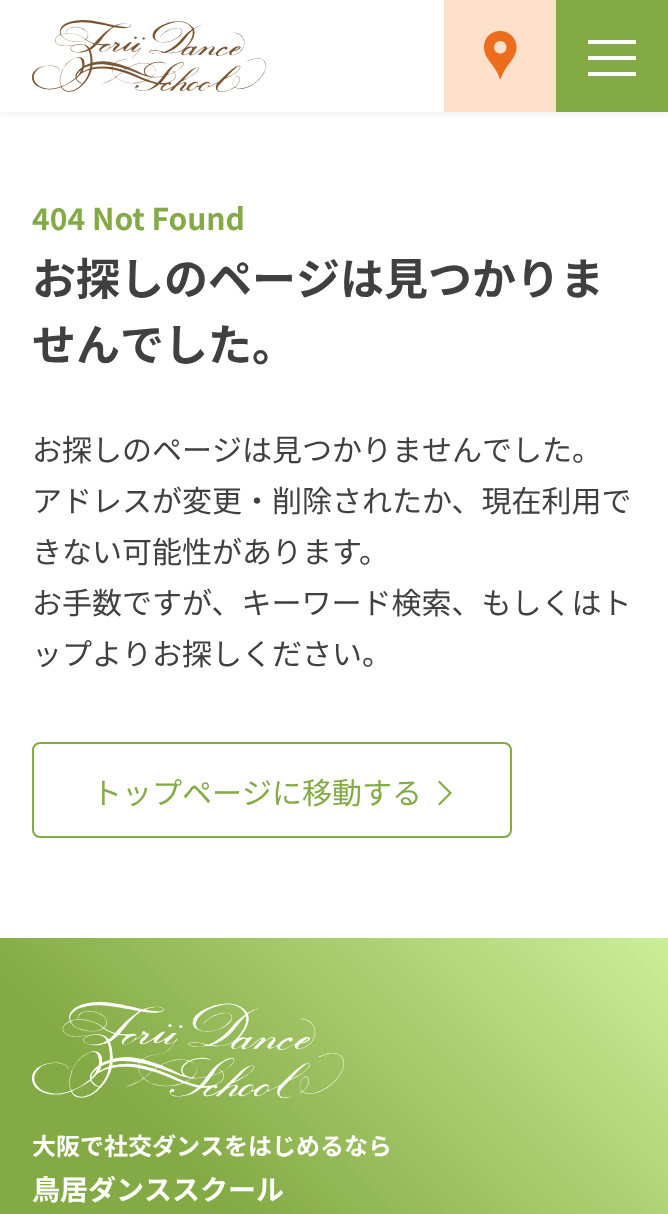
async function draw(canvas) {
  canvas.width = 668
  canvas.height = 1214
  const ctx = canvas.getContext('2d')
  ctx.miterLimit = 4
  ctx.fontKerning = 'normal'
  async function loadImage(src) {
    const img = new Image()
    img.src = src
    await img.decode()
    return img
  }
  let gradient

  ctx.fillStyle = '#fff'
  ctx.fillRect(0, 0, 668, 1214)
  ctx.save()
  ctx.beginPath()
  ctx.rect(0, 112, 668, 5)
  ctx.clip()
  ctx.fillStyle = '#0000001a'
  ctx.filter = 'blur(6px)'
  ctx.beginPath()
  ctx.rect(0, 0, 668, 112)
  ctx.fill()
  ctx.filter = 'none'
  ctx.restore()
  ctx.drawImage(await loadImage('image0.png'), 32, 20, 234, 72)
  ctx.fillStyle = '#ffe0cb'
  ctx.fillRect(444, 0, 112, 112)
  ctx.drawImage(await loadImage('image1.png'), 483, 30, 34, 49)
  ctx.fillStyle = '#84aa45'
  ctx.fillRect(556, 0, 112, 112)
  ctx.fillStyle = '#fff'
  ctx.fillRect(588, 40, 48, 4)
  ctx.fillRect(588, 56, 48, 4)
  ctx.fillRect(588, 72, 48, 4)
  ctx.font = 'bold 30px Noto Sans JP'
  ctx.fillStyle = '#84aa45'
  ctx.fillText('404 Not Found', 32, 230)
  ctx.font = 'bold 44px Noto Sans JP'
  ctx.fillStyle = '#404040'
  ctx.fillText('お探しのページは見つかりま', 32, 295)
  ctx.fillText('せんでした。', 32, 361)
  ctx.font = '30px Noto Sans JP'
  ctx.fillText('お探しのページは見つかりませんでした。', 32, 461)
  ctx.fillText('アドレスが変更・削除されたか、現在利用で', 32, 512)
  ctx.fillText('きない可能性があります。', 32, 563)
  ctx.fillText('お手数ですが、キーワード検索、もしくはト', 32, 614)
  ctx.fillText('ップよりお探しください。', 32, 665)
  ctx.beginPath()
  ctx.roundRect(33, 743, 478, 94, 7)
  ctx.strokeStyle = '#84aa45'
  ctx.lineWidth = 2
  ctx.stroke()
  ctx.fillStyle = '#84aa45'
  ctx.fillText('トップページに移動する', 92, 804)
  ctx.beginPath()
  ctx.moveTo(439.5, 805.5)
  ctx.lineTo(438, 804)
  ctx.lineTo(449, 793)
  ctx.lineTo(438, 782)
  ctx.lineTo(439.5, 780.5)
  ctx.lineTo(452, 793)
  ctx.closePath()
  ctx.fill()
  gradient = ctx.createLinearGradient(-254, 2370, 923, 1193)
  gradient.addColorStop(0.7, '#84aa45')
  gradient.addColorStop(1, '#ceed99')
  ctx.fillStyle = gradient
  ctx.fillRect(0, 938, 668, 276)
  ctx.drawImage(await loadImage('image2.png'), 32, 1002, 312, 96)
  ctx.font = 'bold 24px Noto Sans JP'
  ctx.fillStyle = '#fff'
  ctx.fillText('大阪で社交ダンスをはじめるなら', 32, 1155)
  ctx.font = 'bold 28px Noto Sans JP'
  ctx.fillText('鳥居ダンススクール', 32, 1200)
}

draw(document.querySelector('canvas'))
